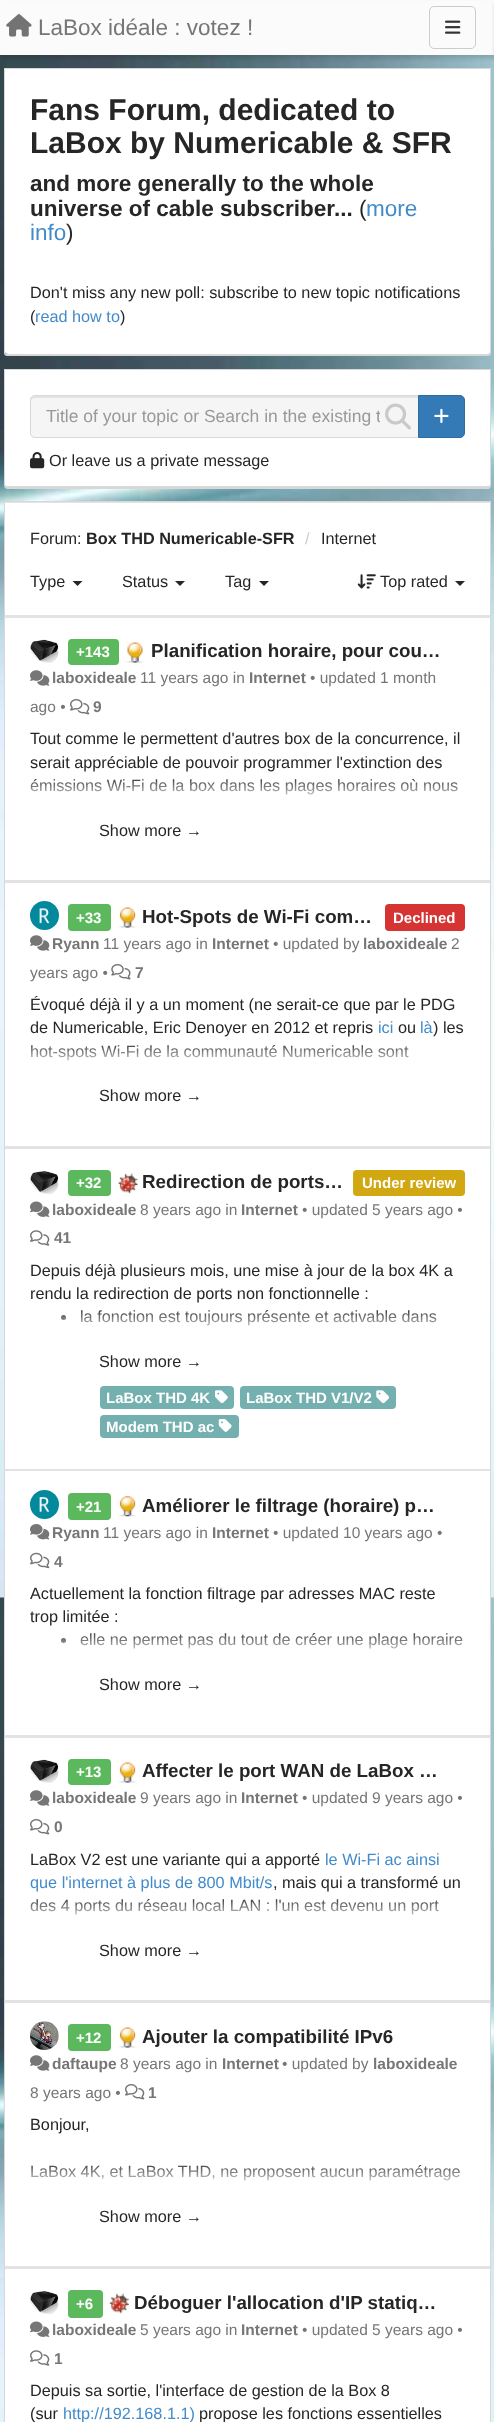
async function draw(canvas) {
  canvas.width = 494
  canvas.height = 2422
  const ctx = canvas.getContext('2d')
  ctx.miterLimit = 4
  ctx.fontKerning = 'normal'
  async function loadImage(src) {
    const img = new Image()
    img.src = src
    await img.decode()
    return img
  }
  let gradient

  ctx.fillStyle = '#fff'
  ctx.fillRect(0, 0, 494, 2422)
  ctx.drawImage(await loadImage('image0.png'), 0, 55, 494, 2367)
  ctx.fillStyle = '#00000026'
  ctx.filter = 'blur(2.5px)'
  ctx.beginPath()
  ctx.rect(0, 3, 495, 55)
  ctx.fill()
  ctx.filter = 'none'
  ctx.fillStyle = '#fbfbfb'
  ctx.fillRect(0, 1, 494, 54)
  ctx.drawImage(await loadImage('image1.png'), 6, 14, 26, 23)
  ctx.font = '22.5px Liberation Sans'
  ctx.fillStyle = '#767676'
  ctx.fillText('LaBox idéale : votez !', 38, 35)
  ctx.beginPath()
  ctx.roundRect(429.5, 6.5, 46, 42, 4.5)
  ctx.strokeStyle = '#ccc'
  ctx.stroke()
  ctx.drawImage(await loadImage('image2.png'), 445, 20, 16, 14)
  ctx.fillStyle = '#00000026'
  ctx.filter = 'blur(2.5px)'
  ctx.beginPath()
  ctx.rect(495, 3, 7, 55)
  ctx.fill()
  ctx.filter = 'none'
  ctx.fillStyle = '#d8d8d8'
  ctx.fillRect(4, 68, 487, 1)
  ctx.fillStyle = '#fff'
  ctx.beginPath()
  ctx.moveTo(5, 69)
  ctx.lineTo(490, 69)
  ctx.lineTo(490, 352)
  ctx.bezierCurveTo(490, 353, 489, 354, 488, 354)
  ctx.lineTo(8, 354)
  ctx.bezierCurveTo(6, 354, 5, 353, 5, 352)
  ctx.closePath()
  ctx.fill()
  ctx.fillStyle = '#d8d8d8'
  ctx.beginPath()
  ctx.moveTo(4, 69)
  ctx.lineTo(491, 69)
  ctx.lineTo(491, 352)
  ctx.bezierCurveTo(491, 355, 490, 356, 488, 356)
  ctx.lineTo(8, 356)
  ctx.bezierCurveTo(5, 356, 4, 355, 4, 352)
  ctx.closePath()
  ctx.moveTo(5, 69)
  ctx.lineTo(490, 69)
  ctx.lineTo(490, 352)
  ctx.bezierCurveTo(490, 353, 489, 354, 488, 354)
  ctx.lineTo(8, 354)
  ctx.bezierCurveTo(6, 354, 5, 353, 5, 352)
  ctx.closePath()
  ctx.fill('evenodd')
  ctx.font = 'bold 30px Liberation Sans'
  ctx.fillStyle = '#262626'
  ctx.fillText('Fans Forum, dedicated to', 30, 120)
  ctx.fillText('LaBox by Numericable & SFR', 30, 153)
  ctx.font = 'bold 22.5px Liberation Sans'
  ctx.fillText('and more generally to the whole', 30, 191)
  ctx.fillText('universe of cable subscriber...', 30, 216)
  ctx.font = '22.5px Liberation Sans'
  ctx.fillText('(', 359, 216)
  ctx.fillStyle = '#428bca'
  ctx.fillText('more', 366, 216)
  ctx.fillText('info', 30, 240)
  ctx.fillStyle = '#262626'
  ctx.fillText(')', 66, 240)
  ctx.font = '16.25px Liberation Sans'
  ctx.fillText('Don\'t miss any new poll: subscribe to new topic notifications', 30, 298)
  ctx.fillText('(', 30, 322)
  ctx.fillStyle = '#428bca'
  ctx.fillText('read how to', 35, 322)
  ctx.fillStyle = '#262626'
  ctx.fillText(')', 120, 322)
  ctx.fillStyle = '#d8d8d8'
  ctx.fillRect(4, 369, 487, 1)
  ctx.fillStyle = '#fff'
  ctx.beginPath()
  ctx.moveTo(5, 370)
  ctx.lineTo(490, 370)
  ctx.lineTo(490, 485)
  ctx.bezierCurveTo(490, 486, 489, 486, 488, 486)
  ctx.lineTo(8, 486)
  ctx.bezierCurveTo(6, 486, 5, 486, 5, 485)
  ctx.closePath()
  ctx.fill()
  ctx.fillStyle = '#d8d8d8'
  ctx.beginPath()
  ctx.moveTo(4, 370)
  ctx.lineTo(491, 370)
  ctx.lineTo(491, 485)
  ctx.bezierCurveTo(491, 487, 490, 489, 488, 489)
  ctx.lineTo(8, 489)
  ctx.bezierCurveTo(5, 489, 4, 487, 4, 485)
  ctx.closePath()
  ctx.moveTo(5, 370)
  ctx.lineTo(490, 370)
  ctx.lineTo(490, 485)
  ctx.bezierCurveTo(490, 486, 489, 486, 488, 486)
  ctx.lineTo(8, 486)
  ctx.bezierCurveTo(6, 486, 5, 486, 5, 485)
  ctx.closePath()
  ctx.fill('evenodd')
  ctx.fillStyle = '#f5f5f5'
  ctx.beginPath()
  ctx.roundRect(30, 395, 389, 43, [5, 0, 0, 5])
  ctx.fill()
  ctx.fillStyle = '#e3e3e3'
  ctx.beginPath()
  ctx.moveTo(35, 398)
  ctx.lineTo(418, 398)
  ctx.lineTo(418, 396)
  ctx.lineTo(35, 396)
  ctx.bezierCurveTo(32, 396, 31, 398, 31, 401)
  ctx.bezierCurveTo(31, 399, 33, 398, 35, 398)
  ctx.closePath()
  ctx.fill()
  ctx.beginPath()
  ctx.roundRect(30.5, 395.5, 388, 42, [4.5, 0, 0, 4.5])
  ctx.strokeStyle = '#d8d8d8'
  ctx.stroke()
  ctx.save()
  ctx.beginPath()
  ctx.rect(46, 406, 334, 20)
  ctx.clip()
  ctx.font = '17.5px Liberation Sans'
  ctx.fillStyle = '#999'
  ctx.fillText('Title of your topic or Search in the existing t', 46, 422)
  ctx.restore()
  ctx.drawImage(await loadImage('image3.png'), 385, 403, 26, 27)
  ctx.fillStyle = '#337ab7'
  ctx.beginPath()
  ctx.roundRect(418.5, 395.5, 46, 42, [0, 4.5, 4.5, 0])
  ctx.fill()
  ctx.strokeStyle = '#2e6da4'
  ctx.stroke()
  ctx.drawImage(await loadImage('image4.png'), 434, 408, 15, 15)
  ctx.drawImage(await loadImage('image5.png'), 30, 452, 15, 17)
  ctx.fillStyle = '#262626'
  ctx.fillText('Or leave us a private message', 49, 466)
  ctx.fillStyle = '#d8d8d8'
  ctx.fillRect(4, 501, 487, 1)
  ctx.fillStyle = '#e3e3e3'
  ctx.beginPath()
  ctx.moveTo(5, 502)
  ctx.lineTo(490, 502)
  ctx.lineTo(490, 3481)
  ctx.bezierCurveTo(490, 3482, 489, 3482, 488, 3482)
  ctx.lineTo(8, 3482)
  ctx.bezierCurveTo(6, 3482, 5, 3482, 5, 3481)
  ctx.closePath()
  ctx.fill()
  ctx.fillStyle = '#d8d8d8'
  ctx.beginPath()
  ctx.moveTo(4, 502)
  ctx.lineTo(491, 502)
  ctx.lineTo(491, 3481)
  ctx.bezierCurveTo(491, 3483, 490, 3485, 488, 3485)
  ctx.lineTo(8, 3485)
  ctx.bezierCurveTo(5, 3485, 4, 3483, 4, 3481)
  ctx.closePath()
  ctx.moveTo(5, 502)
  ctx.lineTo(490, 502)
  ctx.lineTo(490, 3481)
  ctx.bezierCurveTo(490, 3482, 489, 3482, 488, 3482)
  ctx.lineTo(8, 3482)
  ctx.bezierCurveTo(6, 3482, 5, 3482, 5, 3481)
  ctx.closePath()
  ctx.fill('evenodd')
  ctx.fillStyle = '#fff'
  ctx.fillRect(5, 503, 485, 112)
  ctx.fillStyle = '#262626'
  ctx.fillText('Forum:', 30, 544)
  ctx.font = 'bold 16.25px Liberation Sans'
  ctx.fillText('Box THD Numericable-SFR', 86, 544)
  ctx.font = '16.25px Liberation Sans'
  ctx.fillStyle = '#ccc'
  ctx.fillText('/', 305, 544)
  ctx.fillStyle = '#262626'
  ctx.fillText('Internet', 321, 544)
  ctx.fillText('Type', 30, 587)
  ctx.beginPath()
  ctx.moveTo(72.5, 581)
  ctx.lineTo(82.5, 581)
  ctx.lineTo(77.5, 586)
  ctx.closePath()
  ctx.fill()
  ctx.fillText('Status', 122, 587)
  ctx.beginPath()
  ctx.moveTo(175, 581)
  ctx.lineTo(185, 581)
  ctx.lineTo(180, 586)
  ctx.closePath()
  ctx.fill()
  ctx.fillText('Tag', 225, 587)
  ctx.beginPath()
  ctx.moveTo(259, 581)
  ctx.lineTo(269, 581)
  ctx.lineTo(264, 586)
  ctx.closePath()
  ctx.fill()
  ctx.drawImage(await loadImage('image6.png'), 357, 574, 19, 15)
  ctx.fillText('Top rated', 380, 587)
  ctx.beginPath()
  ctx.moveTo(455, 581)
  ctx.lineTo(465, 581)
  ctx.lineTo(460, 586)
  ctx.closePath()
  ctx.fill()
  ctx.fillStyle = '#fff'
  ctx.fillRect(5, 618, 485, 262)
  ctx.drawImage(await loadImage('image7.png'), 30, 639, 29, 24)
  ctx.fillStyle = '#5cb85c'
  ctx.beginPath()
  ctx.roundRect(68, 639, 51, 26, 4)
  ctx.fill()
  ctx.font = 'bold 15px Liberation Sans'
  ctx.fillStyle = '#fff'
  ctx.fillText('+143', 76, 657)
  ctx.drawImage(await loadImage('image8.png'), 126, 642, 18, 21)
  ctx.font = 'bold 18.75px Liberation Sans'
  ctx.fillStyle = '#262626'
  ctx.fillText('Planification horaire, pour cou…', 151, 657)
  ctx.drawImage(await loadImage('image9.png'), 30, 670, 20, 16)
  ctx.font = 'bold 15.5px Liberation Sans'
  ctx.fillStyle = '#767676'
  ctx.fillText('laboxideale', 52, 683)
  ctx.font = '15.5px Liberation Sans'
  ctx.fillText('11 years ago in', 140, 683)
  ctx.font = 'bold 15.5px Liberation Sans'
  ctx.fillText('Internet', 249, 683)
  ctx.font = '15.5px Liberation Sans'
  ctx.fillText('• updated 1 month', 310, 683)
  ctx.fillText('ago •', 30, 712)
  ctx.drawImage(await loadImage('image10.png'), 70, 699, 20, 16)
  ctx.font = 'bold 15.5px Liberation Sans'
  ctx.fillText('9', 93, 712)
  ctx.font = '16.25px Liberation Sans'
  ctx.fillStyle = '#262626'
  ctx.fillText('Tout comme le permettent d\'autres box de la concurrence, il', 30, 744)
  ctx.fillText('serait appréciable de pouvoir programmer l\'extinction des', 30, 768)
  ctx.fillText('émissions Wi-Fi de la box dans les plages horaires où nous', 30, 791)
  gradient = ctx.createLinearGradient(248, 776, 248, 814)
  gradient.addColorStop(0, '#ffffff00')
  gradient.addColorStop(0.7, '#fff')
  ctx.fillStyle = gradient
  ctx.fillRect(30, 779, 428, 16)
  ctx.fillStyle = '#262626'
  ctx.fillText('Show more →', 99, 836)
  ctx.fillStyle = '#fff'
  ctx.fillRect(5, 883, 485, 263)
  ctx.fillStyle = '#03899c'
  ctx.beginPath()
  ctx.arc(44.5, 915.5, 14.5, 0, 2 * Math.PI)
  ctx.fill()
  ctx.drawImage(await loadImage('image11.png'), 39, 908, 11, 16)
  ctx.fillStyle = '#5cb85c'
  ctx.beginPath()
  ctx.roundRect(68, 904, 43, 27, 4)
  ctx.fill()
  ctx.font = 'bold 15px Liberation Sans'
  ctx.fillStyle = '#fff'
  ctx.fillText('+33', 76, 923)
  ctx.drawImage(await loadImage('image12.png'), 118, 907, 18, 21)
  ctx.font = 'bold 18.75px Liberation Sans'
  ctx.fillStyle = '#262626'
  ctx.fillText('Hot-Spots de Wi-Fi com…', 142, 923)
  ctx.fillStyle = '#d63333'
  ctx.beginPath()
  ctx.roundRect(385, 904, 80, 27, 4)
  ctx.fill()
  ctx.font = 'bold 15px Liberation Sans'
  ctx.fillStyle = '#fff'
  ctx.fillText('Declined', 393, 923)
  ctx.drawImage(await loadImage('image9.png'), 30, 935, 20, 16)
  ctx.font = 'bold 15.5px Liberation Sans'
  ctx.fillStyle = '#767676'
  ctx.fillText('Ryann', 52, 949)
  ctx.font = '15.5px Liberation Sans'
  ctx.fillText('11 years ago in', 103, 949)
  ctx.font = 'bold 15.5px Liberation Sans'
  ctx.fillText('Internet', 212, 949)
  ctx.font = '15.5px Liberation Sans'
  ctx.fillText('• updated by', 273, 949)
  ctx.font = 'bold 15.5px Liberation Sans'
  ctx.fillText('laboxideale', 363, 949)
  ctx.font = '15.5px Liberation Sans'
  ctx.fillText('2', 451, 949)
  ctx.fillText('years ago •', 30, 978)
  ctx.drawImage(await loadImage('image13.png'), 111, 964, 20, 16)
  ctx.font = 'bold 15.5px Liberation Sans'
  ctx.fillText('7', 135, 978)
  ctx.font = '16.25px Liberation Sans'
  ctx.fillStyle = '#262626'
  ctx.fillText('Évoqué déjà il y a un moment (ne serait-ce que par le PDG', 30, 1010)
  ctx.fillText('de Numericable, Eric Denoyer en 2012 et repris', 30, 1033)
  ctx.fillStyle = '#428bca'
  ctx.fillText('ici', 378, 1033)
  ctx.fillStyle = '#262626'
  ctx.fillText('ou', 398, 1033)
  ctx.fillStyle = '#428bca'
  ctx.fillText('là', 420, 1033)
  ctx.fillStyle = '#262626'
  ctx.fillText(') les', 433, 1033)
  ctx.fillText('hot-spots Wi-Fi de la communauté Numericable sont', 30, 1057)
  gradient = ctx.createLinearGradient(248, 1041, 248, 1079)
  gradient.addColorStop(0, '#ffffff00')
  gradient.addColorStop(0.7, '#fff')
  ctx.fillStyle = gradient
  ctx.fillRect(31, 1045, 378, 16)
  ctx.fillStyle = '#262626'
  ctx.fillText('Show more →', 99, 1101)
  ctx.fillStyle = '#fff'
  ctx.fillRect(5, 1149, 485, 320)
  ctx.drawImage(await loadImage('image14.png'), 30, 1171, 29, 24)
  ctx.fillStyle = '#5cb85c'
  ctx.beginPath()
  ctx.roundRect(68, 1170, 43, 26, 4)
  ctx.fill()
  ctx.font = 'bold 15px Liberation Sans'
  ctx.fillStyle = '#fff'
  ctx.fillText('+32', 76, 1188)
  ctx.drawImage(await loadImage('image15.png'), 118, 1173, 20, 21)
  ctx.font = 'bold 18.75px Liberation Sans'
  ctx.fillStyle = '#262626'
  ctx.fillText('Redirection de ports…', 142, 1188)
  ctx.fillStyle = '#d1a712'
  ctx.beginPath()
  ctx.roundRect(353, 1170, 112, 26, 4)
  ctx.fill()
  ctx.font = 'bold 15px Liberation Sans'
  ctx.fillStyle = '#fff'
  ctx.fillText('Under review', 362, 1188)
  ctx.drawImage(await loadImage('image16.png'), 30, 1201, 20, 16)
  ctx.font = 'bold 15.5px Liberation Sans'
  ctx.fillStyle = '#767676'
  ctx.fillText('laboxideale', 52, 1215)
  ctx.font = '15.5px Liberation Sans'
  ctx.fillText('8 years ago in', 140, 1215)
  ctx.font = 'bold 15.5px Liberation Sans'
  ctx.fillText('Internet', 241, 1215)
  ctx.font = '15.5px Liberation Sans'
  ctx.fillText('• updated 5 years ago •', 302, 1215)
  ctx.drawImage(await loadImage('image17.png'), 30, 1230, 20, 16)
  ctx.font = 'bold 15.5px Liberation Sans'
  ctx.fillText('41', 54, 1243)
  ctx.font = '16.25px Liberation Sans'
  ctx.fillStyle = '#262626'
  ctx.fillText('Depuis déjà plusieurs mois, une mise à jour de la box 4K a', 30, 1276)
  ctx.fillText('rendu la redirection de ports non fonctionnelle :', 30, 1299)
  ctx.beginPath()
  ctx.arc(63.5, 1317.5, 2.5, 0, 2 * Math.PI)
  ctx.fill()
  ctx.fillText('la fonction est toujours présente et activable dans', 80, 1322)
  gradient = ctx.createLinearGradient(248, 1308, 248, 1345)
  gradient.addColorStop(0, '#ffffff00')
  gradient.addColorStop(0.7, '#fff')
  ctx.fillStyle = gradient
  ctx.fillRect(61, 1310, 376, 16)
  ctx.fillStyle = '#262626'
  ctx.fillText('Show more →', 99, 1367)
  ctx.fillStyle = '#73b0af'
  ctx.beginPath()
  ctx.roundRect(100, 1386, 134, 23, 4)
  ctx.fill()
  ctx.font = 'bold 15px Liberation Sans'
  ctx.fillStyle = '#fff'
  ctx.fillText('LaBox THD 4K', 106, 1403)
  ctx.drawImage(await loadImage('image18.png'), 215, 1390, 13, 14)
  ctx.fillStyle = '#73b0af'
  ctx.beginPath()
  ctx.roundRect(240, 1386, 156, 23, 4)
  ctx.fill()
  ctx.fillStyle = '#fff'
  ctx.fillText('LaBox THD V1/V2', 246, 1403)
  ctx.drawImage(await loadImage('image19.png'), 376, 1390, 13, 14)
  ctx.fillStyle = '#73b0af'
  ctx.beginPath()
  ctx.roundRect(100, 1415, 139, 23, 4)
  ctx.fill()
  ctx.fillStyle = '#fff'
  ctx.fillText('Modem THD ac', 106, 1432)
  ctx.drawImage(await loadImage('image20.png'), 218, 1419, 14, 13)
  ctx.fillRect(5, 1471, 485, 264)
  ctx.fillStyle = '#03899c'
  ctx.beginPath()
  ctx.arc(44.5, 1504.5, 14.5, 0, 2 * Math.PI)
  ctx.fill()
  ctx.drawImage(await loadImage('image21.png'), 39, 1497, 11, 16)
  ctx.fillStyle = '#5cb85c'
  ctx.beginPath()
  ctx.roundRect(68, 1493, 43, 27, 4)
  ctx.fill()
  ctx.fillStyle = '#fff'
  ctx.fillText('+21', 76, 1512)
  ctx.drawImage(await loadImage('image22.png'), 118, 1496, 18, 21)
  ctx.font = 'bold 18.75px Liberation Sans'
  ctx.fillStyle = '#262626'
  ctx.fillText('Améliorer le filtrage (horaire) p…', 142, 1512)
  ctx.drawImage(await loadImage('image23.png'), 30, 1524, 20, 16)
  ctx.font = 'bold 15.5px Liberation Sans'
  ctx.fillStyle = '#767676'
  ctx.fillText('Ryann', 52, 1538)
  ctx.font = '15.5px Liberation Sans'
  ctx.fillText('11 years ago in', 103, 1538)
  ctx.font = 'bold 15.5px Liberation Sans'
  ctx.fillText('Internet', 212, 1538)
  ctx.font = '15.5px Liberation Sans'
  ctx.fillText('• updated 10 years ago •', 273, 1538)
  ctx.drawImage(await loadImage('image24.png'), 30, 1552, 20, 17)
  ctx.font = 'bold 15.5px Liberation Sans'
  ctx.fillText('4', 54, 1567)
  ctx.font = '16.25px Liberation Sans'
  ctx.fillStyle = '#262626'
  ctx.fillText('Actuellement la fonction filtrage par adresses MAC reste', 30, 1599)
  ctx.fillText('trop limitée :', 30, 1622)
  ctx.beginPath()
  ctx.arc(63.5, 1640.5, 2.5, 0, 2 * Math.PI)
  ctx.fill()
  ctx.fillText('elle ne permet pas du tout de créer une plage horaire', 80, 1645)
  gradient = ctx.createLinearGradient(248, 1630, 248, 1668)
  gradient.addColorStop(0, '#ffffff00')
  gradient.addColorStop(0.7, '#fff')
  ctx.fillStyle = gradient
  ctx.fillRect(61, 1633, 402, 16)
  ctx.fillStyle = '#262626'
  ctx.fillText('Show more →', 99, 1690)
  ctx.fillStyle = '#fff'
  ctx.fillRect(5, 1738, 485, 262)
  ctx.drawImage(await loadImage('image25.png'), 30, 1759, 29, 24)
  ctx.fillStyle = '#5cb85c'
  ctx.beginPath()
  ctx.roundRect(68, 1759, 43, 26, 4)
  ctx.fill()
  ctx.font = 'bold 15px Liberation Sans'
  ctx.fillStyle = '#fff'
  ctx.fillText('+13', 76, 1777)
  ctx.drawImage(await loadImage('image12.png'), 118, 1762, 18, 21)
  ctx.font = 'bold 18.75px Liberation Sans'
  ctx.fillStyle = '#262626'
  ctx.fillText('Affecter le port WAN de LaBox …', 142, 1777)
  ctx.drawImage(await loadImage('image9.png'), 30, 1790, 20, 16)
  ctx.font = 'bold 15.5px Liberation Sans'
  ctx.fillStyle = '#767676'
  ctx.fillText('laboxideale', 52, 1803)
  ctx.font = '15.5px Liberation Sans'
  ctx.fillText('9 years ago in', 140, 1803)
  ctx.font = 'bold 15.5px Liberation Sans'
  ctx.fillText('Internet', 241, 1803)
  ctx.font = '15.5px Liberation Sans'
  ctx.fillText('• updated 9 years ago •', 302, 1803)
  ctx.drawImage(await loadImage('image10.png'), 30, 1819, 20, 16)
  ctx.font = 'bold 15.5px Liberation Sans'
  ctx.fillText('0', 54, 1832)
  ctx.font = '16.25px Liberation Sans'
  ctx.fillStyle = '#262626'
  ctx.fillText('LaBox V2 est une variante qui a apporté', 30, 1865)
  ctx.fillStyle = '#428bca'
  ctx.fillText('le Wi-Fi ac ainsi', 325, 1865)
  ctx.fillText('que l\'internet à plus de 800 Mbit/s', 30, 1888)
  ctx.fillStyle = '#262626'
  ctx.fillText(', mais qui a transformé un', 273, 1888)
  ctx.fillText('des 4 ports du réseau local LAN : l\'un est devenu un port', 30, 1911)
  gradient = ctx.createLinearGradient(248, 1896, 248, 1934)
  gradient.addColorStop(0, '#ffffff00')
  gradient.addColorStop(0.7, '#fff')
  ctx.fillStyle = gradient
  ctx.fillRect(30, 1899, 409, 16)
  ctx.fillStyle = '#262626'
  ctx.fillText('Show more →', 99, 1956)
  ctx.fillStyle = '#fff'
  ctx.fillRect(5, 2003, 485, 263)
  ctx.drawImage(await loadImage('image26.png'), 30, 2021, 29, 29)
  ctx.fillStyle = '#5cb85c'
  ctx.beginPath()
  ctx.roundRect(68, 2024, 43, 27, 4)
  ctx.fill()
  ctx.font = 'bold 15px Liberation Sans'
  ctx.fillStyle = '#fff'
  ctx.fillText('+12', 76, 2043)
  ctx.drawImage(await loadImage('image12.png'), 118, 2027, 18, 21)
  ctx.font = 'bold 18.75px Liberation Sans'
  ctx.fillStyle = '#262626'
  ctx.fillText('Ajouter la compatibilité IPv6', 142, 2043)
  ctx.drawImage(await loadImage('image9.png'), 30, 2055, 20, 16)
  ctx.font = 'bold 15.5px Liberation Sans'
  ctx.fillStyle = '#767676'
  ctx.fillText('daftaupe', 52, 2069)
  ctx.font = '15.5px Liberation Sans'
  ctx.fillText('8 years ago in', 120, 2069)
  ctx.font = 'bold 15.5px Liberation Sans'
  ctx.fillText('Internet', 222, 2069)
  ctx.font = '15.5px Liberation Sans'
  ctx.fillText('• updated by', 282, 2069)
  ctx.font = 'bold 15.5px Liberation Sans'
  ctx.fillText('laboxideale', 373, 2069)
  ctx.font = '15.5px Liberation Sans'
  ctx.fillText('8 years ago •', 30, 2098)
  ctx.drawImage(await loadImage('image10.png'), 125, 2084, 20, 16)
  ctx.font = 'bold 15.5px Liberation Sans'
  ctx.fillText('1', 148, 2098)
  ctx.font = '16.25px Liberation Sans'
  ctx.fillStyle = '#262626'
  ctx.fillText('Bonjour,', 30, 2130)
  ctx.fillText('LaBox 4K, et LaBox THD, ne proposent aucun paramétrage', 30, 2177)
  gradient = ctx.createLinearGradient(248, 2161, 248, 2199)
  gradient.addColorStop(0, '#ffffff00')
  gradient.addColorStop(0.7, '#fff')
  ctx.fillStyle = gradient
  ctx.fillRect(31, 2165, 429, 16)
  ctx.fillStyle = '#262626'
  ctx.fillText('Show more →', 99, 2222)
  ctx.fillStyle = '#fff'
  ctx.fillRect(5, 2269, 485, 153)
  ctx.drawImage(await loadImage('image14.png'), 30, 2291, 29, 24)
  ctx.fillStyle = '#5cb85c'
  ctx.beginPath()
  ctx.roundRect(68, 2290, 35, 28, 4)
  ctx.fill()
  ctx.font = 'bold 15px Liberation Sans'
  ctx.fillStyle = '#fff'
  ctx.fillText('+6', 76, 2309)
  ctx.drawImage(await loadImage('image27.png'), 109, 2293, 20, 21)
  ctx.font = 'bold 18.75px Liberation Sans'
  ctx.fillStyle = '#262626'
  ctx.fillText('Déboguer l\'allocation d\'IP statiq…', 134, 2309)
  ctx.drawImage(await loadImage('image16.png'), 30, 2321, 20, 16)
  ctx.font = 'bold 15.5px Liberation Sans'
  ctx.fillStyle = '#767676'
  ctx.fillText('laboxideale', 52, 2335)
  ctx.font = '15.5px Liberation Sans'
  ctx.fillText('5 years ago in', 140, 2335)
  ctx.font = 'bold 15.5px Liberation Sans'
  ctx.fillText('Internet', 241, 2335)
  ctx.font = '15.5px Liberation Sans'
  ctx.fillText('• updated 5 years ago •', 302, 2335)
  ctx.drawImage(await loadImage('image17.png'), 30, 2350, 20, 16)
  ctx.font = 'bold 15.5px Liberation Sans'
  ctx.fillText('1', 54, 2364)
  ctx.font = '16.25px Liberation Sans'
  ctx.fillStyle = '#262626'
  ctx.fillText('Depuis sa sortie, l\'interface de gestion de la Box 8', 30, 2396)
  ctx.fillText('(sur', 30, 2419)
  ctx.fillStyle = '#428bca'
  ctx.fillText('http://192.168.1.1)', 63, 2419)
  ctx.fillStyle = '#262626'
  ctx.fillText('propose les fonctions essentielles', 199, 2419)
}

draw(document.querySelector('canvas'))
